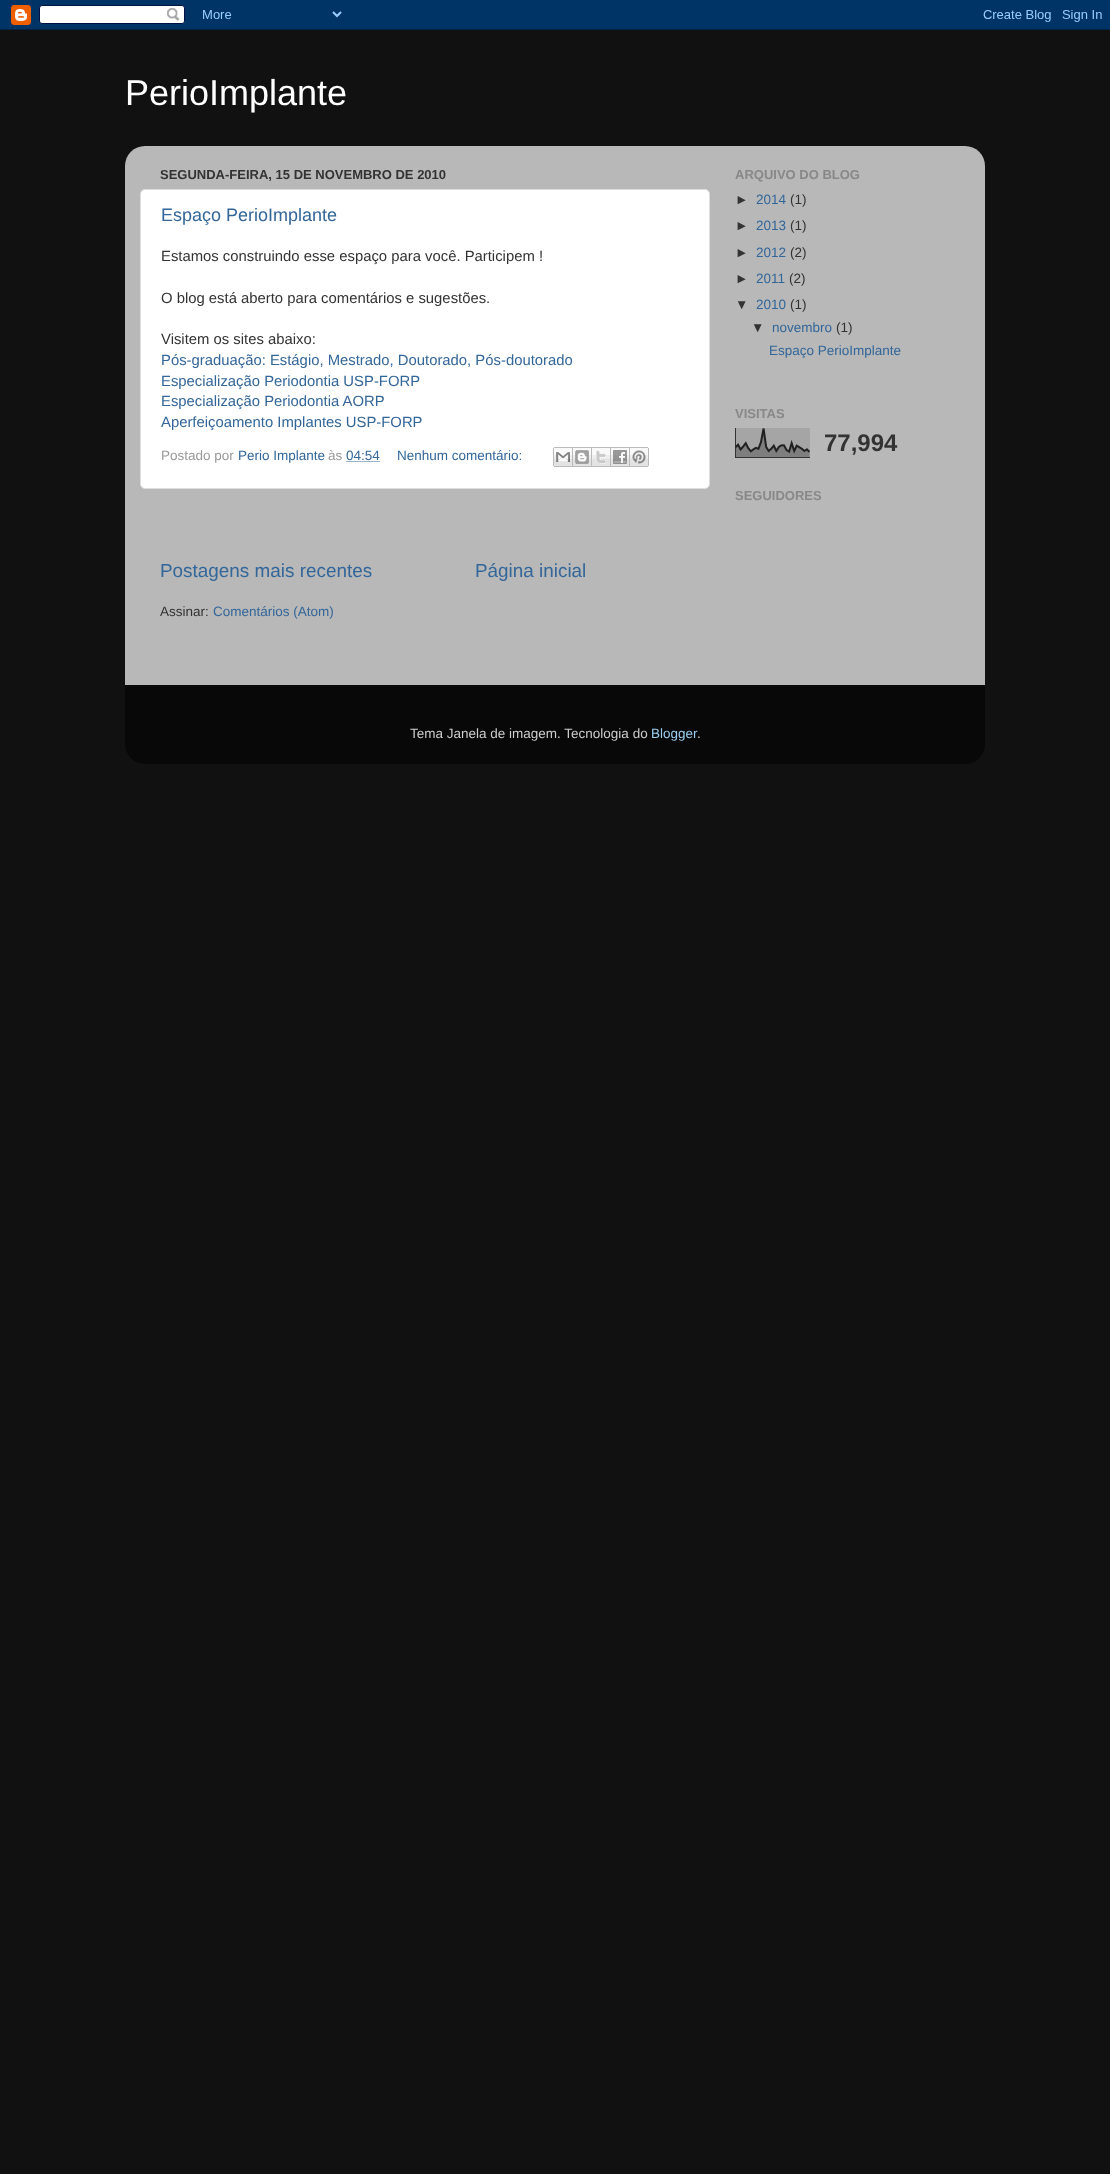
async function draw(canvas) {
  canvas.width = 1110
  canvas.height = 2174
  const ctx = canvas.getContext('2d')
  ctx.miterLimit = 4
  ctx.fontKerning = 'normal'
  async function loadImage(src) {
    const img = new Image()
    img.src = src
    await img.decode()
    return img
  }

  ctx.fillStyle = '#111'
  ctx.fillRect(0, 0, 1110, 2174)
  ctx.drawImage(await loadImage('image0.png'), 0, 0, 1110, 30)
  ctx.font = '36px Liberation Sans'
  ctx.fillStyle = '#fff'
  ctx.fillText('PerioImplante', 125, 105)
  ctx.drawImage(await loadImage('image1.png'), 125, 146, 860, 539)
  ctx.font = 'bold 13px Liberation Sans'
  ctx.fillStyle = '#333'
  ctx.fillText('SEGUNDA-FEIRA, 15 DE NOVEMBRO DE 2010', 160, 179)
  ctx.fillStyle = '#fff'
  ctx.beginPath()
  ctx.roundRect(140.5, 189.5, 569, 299, 4.5)
  ctx.fill()
  ctx.strokeStyle = '#ddd'
  ctx.stroke()
  ctx.font = '18px Liberation Sans'
  ctx.fillStyle = '#369'
  ctx.fillText('Espaço PerioImplante', 161, 221)
  ctx.font = '14.85px Liberation Sans'
  ctx.fillStyle = '#333'
  ctx.fillText('Estamos construindo esse espaço para você. Participem !', 161, 261)
  ctx.fillText('O blog está aberto para comentários e sugestões.', 161, 303)
  ctx.fillText('Visitem os sites abaixo:', 161, 344)
  ctx.fillStyle = '#369'
  ctx.fillText('Pós-graduação: Estágio, Mestrado, Doutorado, Pós-doutorado', 161, 365)
  ctx.fillText('Especialização Periodontia USP-FORP', 161, 386)
  ctx.fillText('Especialização Periodontia AORP', 161, 406)
  ctx.fillText('Aperfeiçoamento Implantes USP-FORP', 161, 427)
  ctx.font = '13.5px Liberation Sans'
  ctx.fillStyle = '#999'
  ctx.fillText('Postado por', 161, 460)
  ctx.fillStyle = '#369'
  ctx.fillText('Perio Implante', 238, 460)
  ctx.fillStyle = '#999'
  ctx.fillText('às', 328, 460)
  ctx.fillStyle = '#369'
  ctx.fillText('04:54', 346, 460)
  ctx.beginPath()
  ctx.moveTo(346.5, 461.5)
  ctx.lineTo(380, 461.5)
  ctx.strokeStyle = '#369'
  ctx.setLineDash([1, 1])
  ctx.stroke()
  ctx.fillText('Nenhum comentário:', 397, 460)
  ctx.drawImage(await loadImage('image2.png'), 553, 447, 20, 20)
  ctx.drawImage(await loadImage('image3.png'), 573, 447, 19, 20)
  ctx.drawImage(await loadImage('image4.png'), 592, 447, 19, 20)
  ctx.drawImage(await loadImage('image5.png'), 611, 447, 19, 20)
  ctx.drawImage(await loadImage('image6.png'), 630, 447, 19, 20)
  ctx.font = '18.9px Liberation Sans'
  ctx.fillText('Postagens mais recentes', 160, 577)
  ctx.fillText('Página inicial', 475, 577)
  ctx.font = '13.5px Liberation Sans'
  ctx.fillStyle = '#333'
  ctx.fillText('Assinar:', 160, 616)
  ctx.fillStyle = '#369'
  ctx.fillText('Comentários (Atom)', 213, 616)
  ctx.font = 'bold 13px Liberation Sans'
  ctx.fillStyle = '#888'
  ctx.fillText('ARQUIVO DO BLOG', 735, 179)
  ctx.font = '13.5px Liberation Sans'
  ctx.fillStyle = '#333'
  ctx.fillText('►', 735, 204)
  ctx.fillStyle = '#369'
  ctx.fillText('2014', 756, 204)
  ctx.fillStyle = '#333'
  ctx.fillText('(1)', 790, 204)
  ctx.fillText('►', 735, 230)
  ctx.fillStyle = '#369'
  ctx.fillText('2013', 756, 230)
  ctx.fillStyle = '#333'
  ctx.fillText('(1)', 790, 230)
  ctx.fillText('►', 735, 257)
  ctx.fillStyle = '#369'
  ctx.fillText('2012', 756, 257)
  ctx.fillStyle = '#333'
  ctx.fillText('(2)', 790, 257)
  ctx.fillText('►', 735, 283)
  ctx.fillStyle = '#369'
  ctx.fillText('2011', 756, 283)
  ctx.fillStyle = '#333'
  ctx.fillText('(2)', 789, 283)
  ctx.fillText('▼', 735, 309)
  ctx.fillStyle = '#369'
  ctx.fillText('2010', 756, 309)
  ctx.fillStyle = '#333'
  ctx.fillText('(1)', 790, 309)
  ctx.fillText('▼', 751, 332)
  ctx.fillStyle = '#369'
  ctx.fillText('novembro', 772, 332)
  ctx.fillStyle = '#333'
  ctx.fillText('(1)', 836, 332)
  ctx.fillStyle = '#369'
  ctx.fillText('Espaço PerioImplante', 769, 355)
  ctx.font = 'bold 13px Liberation Sans'
  ctx.fillStyle = '#888'
  ctx.fillText('VISITAS', 735, 418)
  ctx.drawImage(await loadImage('image7.png'), 735, 428, 75, 30)
  ctx.font = 'bold 24px Liberation Sans'
  ctx.fillStyle = '#333'
  ctx.fillText('77,994', 824, 451)
  ctx.font = 'bold 13px Liberation Sans'
  ctx.fillStyle = '#888'
  ctx.fillText('SEGUIDORES', 735, 500)
  ctx.drawImage(await loadImage('image8.png'), 125, 685, 860, 79)
  ctx.font = '13.5px Liberation Sans'
  ctx.fillStyle = '#ccc'
  ctx.fillText('Tema Janela de imagem. Tecnologia do', 410, 738)
  ctx.fillStyle = '#9ce'
  ctx.fillText('Blogger', 651, 738)
  ctx.fillStyle = '#ccc'
  ctx.fillText('.', 697, 738)
}

draw(document.querySelector('canvas'))
